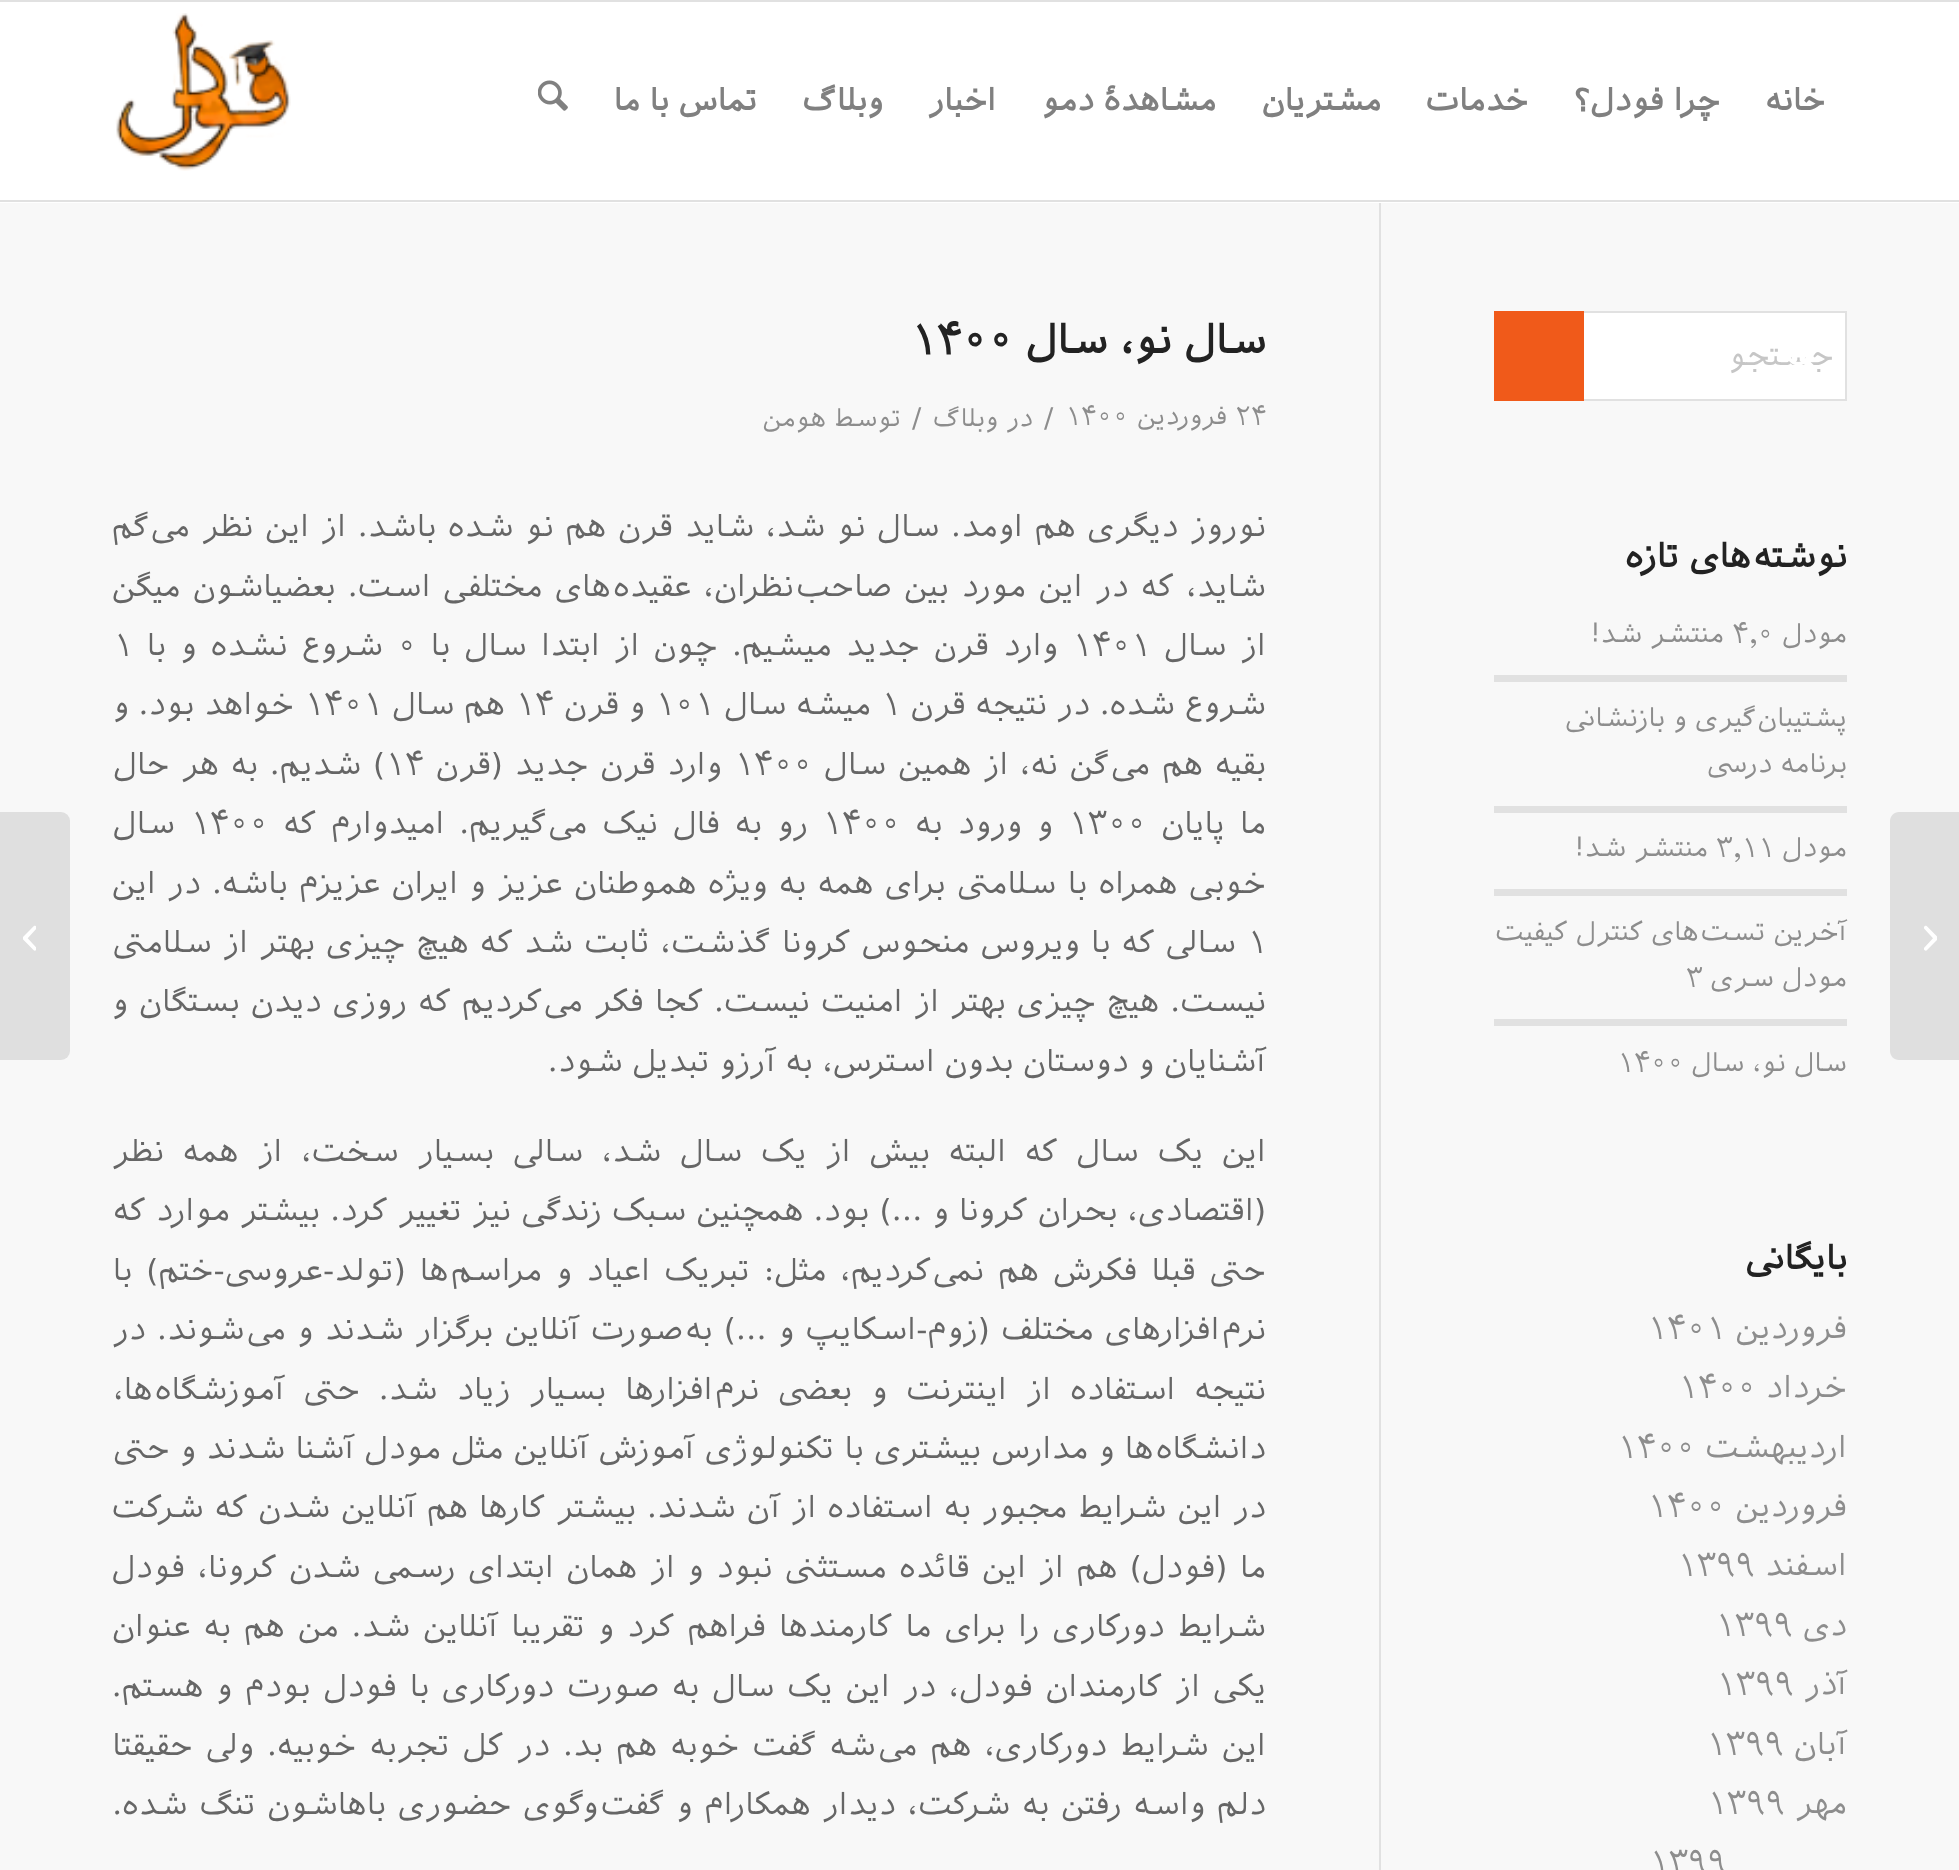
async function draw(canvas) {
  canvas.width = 1959
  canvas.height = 1870
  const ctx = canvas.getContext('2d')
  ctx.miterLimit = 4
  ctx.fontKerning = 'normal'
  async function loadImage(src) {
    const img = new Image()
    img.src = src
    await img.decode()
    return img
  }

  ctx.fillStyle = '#f8f8f8'
  ctx.fillRect(0, 0, 1959, 1870)
  ctx.fillStyle = '#e1e1e1'
  ctx.fillRect(1379, 198, 2, 1672)
  ctx.fillStyle = '#fff'
  ctx.fillRect(0, 2, 1959, 201)
  ctx.fillStyle = '#e1e1e1'
  ctx.fillRect(0, 0, 1959, 2)
  ctx.fillRect(0, 200, 1959, 2)
  ctx.direction = 'rtl'
  ctx.font = 'bold 36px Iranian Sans'
  ctx.fillStyle = '#808080'
  ctx.fillText('خانه', 1825, 110)
  ctx.fillText('چرا فودل؟', 1720, 110)
  ctx.fillText('خدمات', 1528, 110)
  ctx.fillText('مشتریان', 1381, 110)
  ctx.fillText('مشاهدهٔ دمو', 1216, 110)
  ctx.fillText('اخبار', 996, 110)
  ctx.fillText('وبلاگ', 883, 110)
  ctx.fillText('تماس با ما', 757, 110)
  ctx.drawImage(await loadImage('image0.png'), 538, 80, 30, 31)
  ctx.drawImage(await loadImage('image1.png'), 115, 13, 176, 158)
  ctx.fillStyle = '#dfdfdf'
  ctx.beginPath()
  ctx.moveTo(1899, 812)
  ctx.lineTo(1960, 812)
  ctx.lineTo(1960, 1060)
  ctx.lineTo(1899, 1060)
  ctx.bezierCurveTo(1894, 1060, 1890, 1056, 1890, 1051)
  ctx.lineTo(1890, 821)
  ctx.bezierCurveTo(1890, 816, 1894, 812, 1899, 812)
  ctx.closePath()
  ctx.fill()
  ctx.drawImage(await loadImage('image2.png'), 1924, 925, 13, 26)
  ctx.fillStyle = '#fff'
  ctx.fillRect(1584, 313, 261, 86)
  ctx.strokeStyle = '#e1e1e1'
  ctx.lineWidth = 2
  ctx.strokeRect(1495, 312, 351, 88)
  ctx.font = '36px Iranian Sans'
  ctx.fillStyle = '#c6c6c6'
  ctx.fillText('جستجو', 1834, 365)
  ctx.fillStyle = '#f05a1a'
  ctx.fillRect(1494, 311, 90, 90)
  ctx.drawImage(await loadImage('image3.png'), 1789, 357, 25, 8)
  ctx.font = 'bold 39.5px Iranian Sans'
  ctx.fillStyle = '#222'
  ctx.fillText('نوشته‌های تازه', 1847, 567)
  ctx.font = '30.6px Iranian Sans'
  ctx.fillStyle = '#8d8d8d'
  ctx.fillText('مودل', 1847, 642)
  ctx.direction = 'ltr'
  ctx.fillText('۴٫۰', 1732, 642)
  ctx.direction = 'rtl'
  ctx.fillText('منتشر شد!', 1724, 642)
  ctx.fillStyle = '#e1e1e1'
  ctx.fillRect(1494, 675, 353, 7)
  ctx.fillStyle = '#8d8d8d'
  ctx.fillText('پشتیبان‌گیری و بازنشانی', 1847, 726)
  ctx.fillText('برنامه درسی', 1847, 772)
  ctx.fillStyle = '#e1e1e1'
  ctx.fillRect(1494, 806, 353, 7)
  ctx.fillStyle = '#8d8d8d'
  ctx.fillText('مودل', 1847, 856)
  ctx.direction = 'ltr'
  ctx.fillText('۳٫۱۱', 1716, 856)
  ctx.direction = 'rtl'
  ctx.fillText('منتشر شد!', 1708, 856)
  ctx.fillStyle = '#e1e1e1'
  ctx.fillRect(1494, 889, 353, 7)
  ctx.fillStyle = '#8d8d8d'
  ctx.fillText('آخرین تست‌های کنترل کیفیت', 1847, 940)
  ctx.fillText('مودل سری', 1847, 986)
  ctx.direction = 'ltr'
  ctx.fillText('۳', 1686, 986)
  ctx.fillStyle = '#e1e1e1'
  ctx.fillRect(1494, 1019, 353, 7)
  ctx.direction = 'rtl'
  ctx.fillStyle = '#8d8d8d'
  ctx.fillText('سال نو، سال', 1847, 1071)
  ctx.direction = 'ltr'
  ctx.fillText('۱۴۰۰', 1617, 1071)
  ctx.direction = 'rtl'
  ctx.font = 'bold 39.5px Iranian Sans'
  ctx.fillStyle = '#222'
  ctx.fillText('بایگانی', 1847, 1269)
  ctx.font = '36px Iranian Sans'
  ctx.fillStyle = '#8d8d8d'
  ctx.fillText('فروردین', 1847, 1338)
  ctx.direction = 'ltr'
  ctx.fillText('۱۴۰۱', 1647, 1338)
  ctx.direction = 'rtl'
  ctx.fillText('خرداد', 1847, 1397)
  ctx.direction = 'ltr'
  ctx.fillText('۱۴۰۰', 1678, 1397)
  ctx.direction = 'rtl'
  ctx.fillText('اردیبهشت', 1847, 1457)
  ctx.direction = 'ltr'
  ctx.fillText('۱۴۰۰', 1617, 1457)
  ctx.direction = 'rtl'
  ctx.fillText('فروردین', 1847, 1516)
  ctx.direction = 'ltr'
  ctx.fillText('۱۴۰۰', 1647, 1516)
  ctx.direction = 'rtl'
  ctx.fillText('اسفند', 1847, 1575)
  ctx.direction = 'ltr'
  ctx.fillText('۱۳۹۹', 1677, 1575)
  ctx.direction = 'rtl'
  ctx.fillText('دی', 1847, 1635)
  ctx.direction = 'ltr'
  ctx.fillText('۱۳۹۹', 1715, 1635)
  ctx.direction = 'rtl'
  ctx.fillText('آذر', 1847, 1694)
  ctx.direction = 'ltr'
  ctx.fillText('۱۳۹۹', 1716, 1694)
  ctx.direction = 'rtl'
  ctx.fillText('آبان', 1847, 1754)
  ctx.direction = 'ltr'
  ctx.fillText('۱۳۹۹', 1706, 1754)
  ctx.direction = 'rtl'
  ctx.fillText('مهر', 1847, 1813)
  ctx.direction = 'ltr'
  ctx.fillText('۱۳۹۹', 1707, 1813)
  ctx.fillText('۱۳۹۹', 1649, 1872)
  ctx.direction = 'rtl'
  ctx.font = 'bold 47.25px Iranian Sans'
  ctx.fillStyle = '#222'
  ctx.fillText('سال نو، سال', 1266, 353)
  ctx.direction = 'ltr'
  ctx.fillText('۱۴۰۰', 910, 353)
  ctx.font = '29px Iranian Sans'
  ctx.fillStyle = '#8d8d8d'
  ctx.fillText('۲۴', 1235, 424)
  ctx.direction = 'rtl'
  ctx.fillText('فروردین', 1227, 424)
  ctx.direction = 'ltr'
  ctx.fillText('۱۴۰۰', 1065, 424)
  ctx.font = '32px Iranian Sans'
  ctx.fillText('/', 1044, 426)
  ctx.direction = 'rtl'
  ctx.font = '29px Iranian Sans'
  ctx.fillText('در', 1033, 426)
  ctx.fillText('وبلاگ', 998, 426)
  ctx.direction = 'ltr'
  ctx.font = '32px Iranian Sans'
  ctx.fillText('/', 912, 426)
  ctx.direction = 'rtl'
  ctx.font = '29px Iranian Sans'
  ctx.fillText('توسط', 901, 426)
  ctx.fillText('هومن', 826, 426)
  ctx.wordSpacing = '2px'
  ctx.font = '36px Iranian Sans'
  ctx.fillStyle = '#666'
  ctx.fillText('نوروز دیگری هم اومد. سال نو شد، شاید قرن هم نو شده باشد. از این نظر می‌گم', 1266, 536)
  ctx.wordSpacing = '2.75px'
  ctx.fillText('شاید، که در این مورد بین صاحب‌نظران، عقیده‌های مختلفی است. بعضیاشون میگن', 1266, 596)
  ctx.wordSpacing = '4.5px'
  ctx.fillText('از سال', 1266, 655)
  ctx.wordSpacing = '0px'
  ctx.direction = 'ltr'
  ctx.fillText('۱۴۰۱', 1072, 655)
  ctx.wordSpacing = '4.5px'
  ctx.direction = 'rtl'
  ctx.fillText('وارد قرن جدید میشیم. چون از ابتدا سال با', 1058, 655)
  ctx.wordSpacing = '0px'
  ctx.direction = 'ltr'
  ctx.fillText('۰', 397, 655)
  ctx.wordSpacing = '4.5px'
  ctx.direction = 'rtl'
  ctx.fillText('شروع نشده و با', 383, 655)
  ctx.wordSpacing = '0px'
  ctx.direction = 'ltr'
  ctx.fillText('۱', 113, 655)
  ctx.direction = 'rtl'
  ctx.fillText('شروع شده. در نتیجه قرن', 1266, 714)
  ctx.direction = 'ltr'
  ctx.fillText('۱', 881, 714)
  ctx.direction = 'rtl'
  ctx.fillText('میشه سال', 871, 714)
  ctx.direction = 'ltr'
  ctx.fillText('۱۰۱', 655, 714)
  ctx.direction = 'rtl'
  ctx.fillText('و قرن', 645, 714)
  ctx.direction = 'ltr'
  ctx.fillText('۱۴', 515, 714)
  ctx.direction = 'rtl'
  ctx.fillText('هم سال', 505, 714)
  ctx.direction = 'ltr'
  ctx.fillText('۱۴۰۱', 304, 714)
  ctx.direction = 'rtl'
  ctx.fillText('خواهد بود. و', 294, 714)
  ctx.wordSpacing = '2.1px'
  ctx.fillText('بقیه هم می‌گن نه، از همین سال', 1266, 774)
  ctx.wordSpacing = '0px'
  ctx.direction = 'ltr'
  ctx.fillText('۱۴۰۰', 734, 774)
  ctx.wordSpacing = '2.1px'
  ctx.direction = 'rtl'
  ctx.fillText('وارد قرن جدید (قرن', 722, 774)
  ctx.wordSpacing = '0px'
  ctx.direction = 'ltr'
  ctx.fillText('۱۴', 385, 774)
  ctx.wordSpacing = '2.1px'
  ctx.direction = 'rtl'
  ctx.fillText(') شدیم. به هر حال', 385, 774)
  ctx.wordSpacing = '5.25px'
  ctx.fillText('ما پایان', 1266, 833)
  ctx.wordSpacing = '0px'
  ctx.direction = 'ltr'
  ctx.fillText('۱۳۰۰', 1068, 833)
  ctx.wordSpacing = '5.25px'
  ctx.direction = 'rtl'
  ctx.fillText('و ورود به', 1053, 833)
  ctx.wordSpacing = '0px'
  ctx.direction = 'ltr'
  ctx.fillText('۱۴۰۰', 822, 833)
  ctx.wordSpacing = '5.25px'
  ctx.direction = 'rtl'
  ctx.fillText('رو به فال نیک می‌گیریم. امیدوارم که', 808, 833)
  ctx.wordSpacing = '0px'
  ctx.direction = 'ltr'
  ctx.fillText('۱۴۰۰', 190, 833)
  ctx.direction = 'rtl'
  ctx.fillText('سال', 175, 833)
  ctx.wordSpacing = '1.7px'
  ctx.fillText('خوبی همراه با سلامتی برای همه به ویژه هموطنان عزیز و ایران عزیزم باشه. در این', 1266, 893)
  ctx.wordSpacing = '0px'
  ctx.direction = 'ltr'
  ctx.fillText('۱', 1247, 952)
  ctx.wordSpacing = '1.5px'
  ctx.direction = 'rtl'
  ctx.fillText('سالی که با ویروس منحوس کرونا گذشت، ثابت شد که هیچ چیزی بهتر از سلامتی', 1236, 952)
  ctx.wordSpacing = '1.4px'
  ctx.fillText('نیست. هیچ چیزی بهتر از امنیت نیست. کجا فکر می‌کردیم که روزی دیدن بستگان و', 1266, 1011)
  ctx.wordSpacing = '0px'
  ctx.fillText('آشنایان و دوستان بدون استرس، به آرزو تبدیل شود.', 1266, 1071)
  ctx.wordSpacing = '9px'
  ctx.fillText('این یک سال که البته بیش از یک سال شد، سالی بسیار سخت، از همه نظر', 1266, 1161)
  ctx.wordSpacing = '0.5px'
  ctx.fillText('(اقتصادی، بحران کرونا و …) بود. همچنین سبک زندگی نیز تغییر کرد. بیشتر موارد که', 1266, 1220)
  ctx.wordSpacing = '4.25px'
  ctx.fillText('حتی قبلا فکرش هم نمی‌کردیم، مثل: تبریک اعیاد و مراسم‌ها (تولد-عروسی-ختم) با', 1266, 1280)
  ctx.wordSpacing = '1.6px'
  ctx.fillText('نرم‌افزار‌های مختلف (زوم-اسکایپ و …) به‌صورت آنلاین برگزار شدند و می‌شوند. در', 1266, 1339)
  ctx.wordSpacing = '9.25px'
  ctx.fillText('نتیجه استفاده از اینترنت و بعضی نرم‌افزار‌ها بسیار زیاد شد. حتی آموزشگاه‌ها،', 1266, 1399)
  ctx.wordSpacing = '0.5px'
  ctx.fillText('دانشگاه‌ها و مدارس بیشتری با تکنولوژی آموزش آنلاین مثل مودل آشنا شدند و حتی', 1266, 1458)
  ctx.wordSpacing = '1.25px'
  ctx.fillText('در این شرایط مجبور به استفاده از آن شدند. بیشتر کارها هم آنلاین شدن که شرکت', 1266, 1517)
  ctx.wordSpacing = '2.75px'
  ctx.fillText('ما (فودل) هم از این قائده مستثنی نبود و از همان ابتدای رسمی شدن کرونا، فودل', 1266, 1577)
  ctx.wordSpacing = '3.25px'
  ctx.fillText('شرایط دورکاری را برای ما کارمند‌ها فراهم کرد و تقریبا آنلاین شد. من هم به عنوان', 1266, 1636)
  ctx.wordSpacing = '3.1px'
  ctx.fillText('یکی از کارمندان فودل، در این یک سال به صورت دورکاری با فودل بودم و هستم.', 1266, 1696)
  ctx.wordSpacing = '3.5px'
  ctx.fillText('این شرایط دورکاری، هم می‌شه گفت خوبه هم بد. در کل تجربه خوبیه. ولی حقیقتا', 1266, 1755)
  ctx.wordSpacing = '2.1px'
  ctx.fillText('دلم واسه رفتن به شرکت، دیدار همکارام و گفت‌و‌گوی حضوری باهاشون تنگ شده.', 1266, 1814)
  ctx.fillStyle = '#dfdfdf'
  ctx.beginPath()
  ctx.roundRect(0, 812, 70, 248, [0, 9, 9, 0])
  ctx.fill()
  ctx.drawImage(await loadImage('image4.png'), 23, 925, 13, 26)
}

draw(document.querySelector('canvas'))
